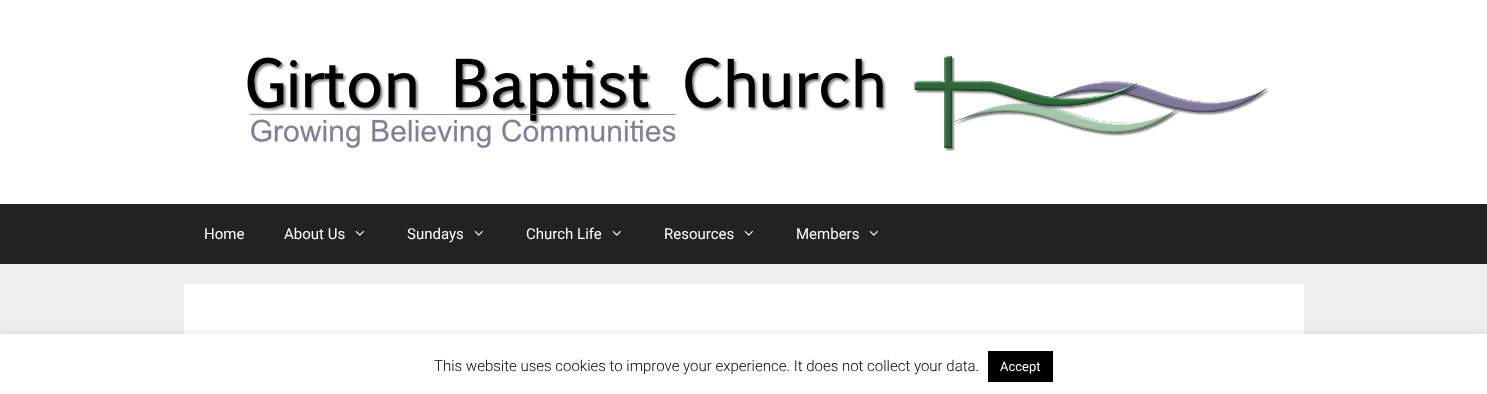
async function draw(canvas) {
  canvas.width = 1487
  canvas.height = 394
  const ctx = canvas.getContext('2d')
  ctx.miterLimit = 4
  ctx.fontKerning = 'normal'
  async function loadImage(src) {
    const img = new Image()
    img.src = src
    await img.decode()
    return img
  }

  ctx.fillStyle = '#efefef'
  ctx.fillRect(0, 0, 1487, 394)
  ctx.fillStyle = '#fff'
  ctx.fillRect(0, 0, 1487, 204)
  ctx.drawImage(await loadImage('image0.png'), 247, 55, 1023, 97)
  ctx.fillStyle = '#222'
  ctx.fillRect(0, 204, 1487, 60)
  ctx.font = '15px Roboto'
  ctx.fillStyle = '#fff'
  ctx.fillText('Home', 204, 239)
  ctx.fillText('About Us', 284, 239)
  ctx.drawImage(await loadImage('image1.png'), 355, 231, 9, 5)
  ctx.fillText('Sundays', 407, 239)
  ctx.drawImage(await loadImage('image1.png'), 474, 231, 9, 5)
  ctx.fillText('Church Life', 526, 239)
  ctx.drawImage(await loadImage('image1.png'), 612, 231, 9, 5)
  ctx.fillText('Resources', 664, 239)
  ctx.drawImage(await loadImage('image1.png'), 744, 231, 9, 5)
  ctx.fillText('Members', 796, 239)
  ctx.drawImage(await loadImage('image1.png'), 869, 231, 9, 5)
  ctx.fillRect(184, 284, 1120, 50)
  ctx.fillStyle = '#acabab4d'
  ctx.filter = 'blur(5px)'
  ctx.beginPath()
  ctx.rect(0, 333, 1487, 60)
  ctx.fill()
  ctx.filter = 'none'
  ctx.fillStyle = '#fff'
  ctx.fillRect(0, 334, 1487, 60)
  ctx.font = '300 15px Roboto'
  ctx.fillStyle = '#000'
  ctx.fillText('This website uses cookies to improve your experience. It does not collect your data.', 434, 371)
  ctx.fillRect(988, 351, 65, 31)
  ctx.font = '13px Roboto'
  ctx.fillStyle = '#fff'
  ctx.fillText('Accept', 1000, 371)
}

draw(document.querySelector('canvas'))
